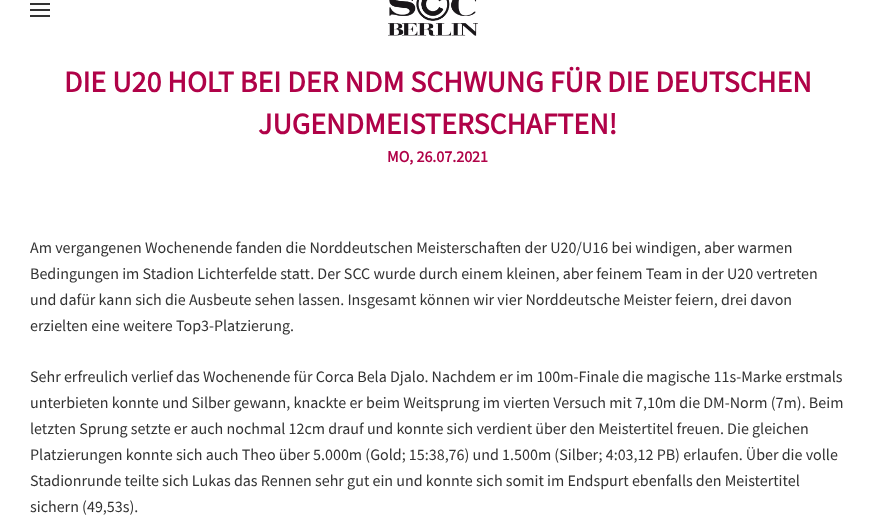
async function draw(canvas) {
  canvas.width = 875
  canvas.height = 525
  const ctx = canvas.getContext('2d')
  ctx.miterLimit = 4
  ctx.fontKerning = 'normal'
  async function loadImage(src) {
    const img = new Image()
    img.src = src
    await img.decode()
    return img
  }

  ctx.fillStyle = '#fff'
  ctx.fillRect(0, 0, 875, 525)
  ctx.fillStyle = '#333'
  ctx.fillRect(30, 3, 20, 2)
  ctx.fillRect(30, 9, 20, 2)
  ctx.fillRect(30, 15, 20, 2)
  ctx.drawImage(await loadImage('image0.png'), 388, 0, 90, 36)
  ctx.font = 'bold 30px Source Sans Pro'
  ctx.fillStyle = '#b00248'
  ctx.fillText('DIE U20 HOLT BEI DER NDM SCHWUNG FÜR DIE DEUTSCHEN', 64, 92)
  ctx.fillText('JUGENDMEISTERSCHAFTEN!', 258, 134)
  ctx.font = 'bold 16px Source Sans Pro'
  ctx.fillText('MO, 26.07.2021', 387, 162)
  ctx.font = '16px Source Sans Pro'
  ctx.fillStyle = '#333'
  ctx.fillText('Am vergangenen Wochenende fanden die Norddeutschen Meisterschaften der U20/U16 bei windigen, aber warmen', 30, 253)
  ctx.fillText('Bedingungen im Stadion Lichterfelde statt. Der SCC wurde durch einem kleinen, aber feinem Team in der U20 vertreten', 30, 279)
  ctx.fillText('und dafür kann sich die Ausbeute sehen lassen. Insgesamt können wir vier Norddeutsche Meister feiern, drei davon', 30, 305)
  ctx.fillText('erzielten eine weitere Top3-Platzierung.', 30, 331)
  ctx.fillText('Sehr erfreulich verlief das Wochenende für Corca Bela Djalo. Nachdem er im 100m-Finale die magische 11s-Marke erstmals', 30, 382)
  ctx.fillText('unterbieten konnte und Silber gewann, knackte er beim Weitsprung im vierten Versuch mit 7,10m die DM-Norm (7m). Beim', 30, 408)
  ctx.fillText('letzten Sprung setzte er auch nochmal 12cm drauf und konnte sich verdient über den Meistertitel freuen. Die gleichen', 30, 434)
  ctx.fillText('Platzierungen konnte sich auch Theo über 5.000m (Gold; 15:38,76) und 1.500m (Silber; 4:03,12 PB) erlaufen. Über die volle', 30, 460)
  ctx.fillText('Stadionrunde teilte sich Lukas das Rennen sehr gut ein und konnte sich somit im Endspurt ebenfalls den Meistertitel', 30, 486)
  ctx.fillText('sichern (49,53s).', 30, 512)
}

draw(document.querySelector('canvas'))
